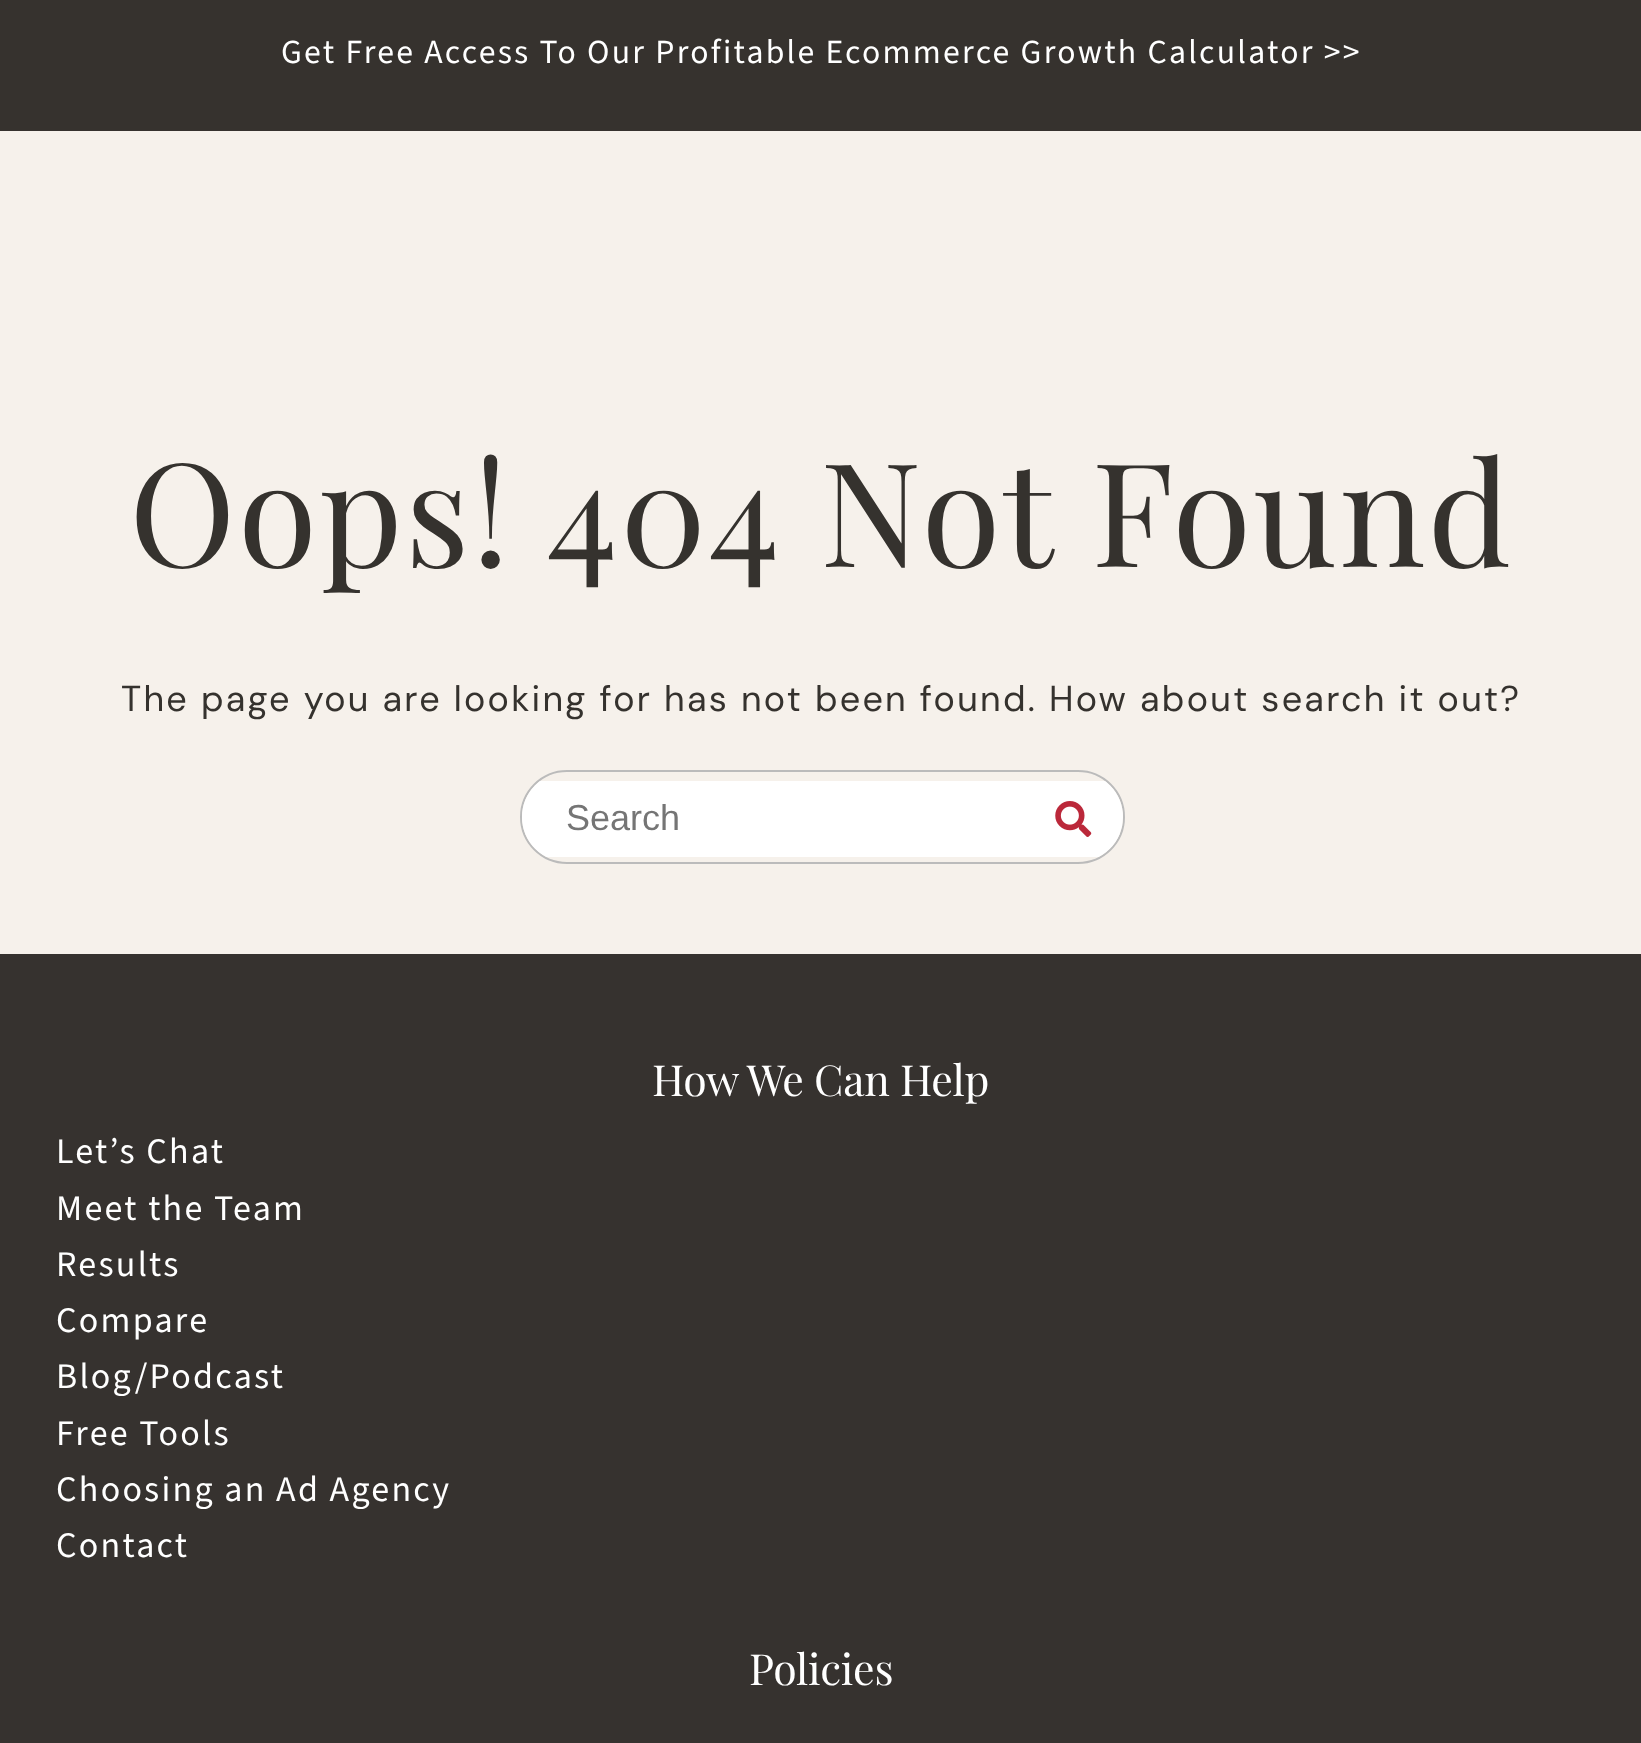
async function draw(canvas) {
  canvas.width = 1641
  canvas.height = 1743
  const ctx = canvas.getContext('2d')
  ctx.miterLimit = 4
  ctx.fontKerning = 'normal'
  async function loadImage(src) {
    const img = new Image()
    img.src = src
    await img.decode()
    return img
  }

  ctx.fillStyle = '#f6f1eb'
  ctx.fillRect(0, 0, 1641, 1743)
  ctx.fillStyle = '#36322e'
  ctx.fillRect(0, 0, 1641, 131)
  ctx.letterSpacing = '2.25px'
  ctx.font = '33.75px "Source Sans 3"'
  ctx.fillStyle = '#fff'
  ctx.fillText('Get Free Access To Our Profitable Ecommerce Growth Calculator >>', 281, 63)
  ctx.font = '144px Playfair Display'
  ctx.fillStyle = '#35322e'
  ctx.fillText('Oops! 404 Not Found', 129, 567)
  ctx.font = '36px DM Sans'
  ctx.fillText('The page you are looking for has not been found. How about search it out?', 121, 711)
  ctx.beginPath()
  ctx.roundRect(521, 771, 603, 92, 46)
  ctx.strokeStyle = '#bbb'
  ctx.lineWidth = 2
  ctx.stroke()
  ctx.save()
  ctx.beginPath()
  ctx.roundRect(522, 772, 601, 90, 45)
  ctx.clip()
  ctx.fillStyle = '#fff'
  ctx.fillRect(522, 781, 601, 76)
  ctx.restore()
  ctx.letterSpacing = '0px'
  ctx.font = '36px Liberation Sans'
  ctx.fillStyle = '#757575'
  ctx.fillText('Search', 566, 830)
  ctx.drawImage(await loadImage('image0.png'), 1055, 801, 37, 36)
  ctx.fillStyle = '#36322f'
  ctx.fillRect(0, 954, 1641, 789)
  ctx.letterSpacing = '-0.25px'
  ctx.font = '42.75px Playfair Display'
  ctx.fillStyle = '#fff'
  ctx.fillText('How We Can Help', 652, 1096)
  ctx.letterSpacing = '2.25px'
  ctx.font = '36px "Source Sans 3"'
  ctx.fillText('Let’s Chat', 56, 1163)
  ctx.fillText('Meet the Team', 56, 1220)
  ctx.fillText('Results', 56, 1276)
  ctx.fillText('Compare', 56, 1332)
  ctx.fillText('Blog/Podcast', 56, 1388)
  ctx.fillText('Free Tools', 56, 1445)
  ctx.fillText('Choosing an Ad Agency', 56, 1501)
  ctx.fillText('Contact', 56, 1557)
  ctx.letterSpacing = '-0.25px'
  ctx.font = '42.75px Playfair Display'
  ctx.fillText('Policies', 749, 1685)
}

draw(document.querySelector('canvas'))
